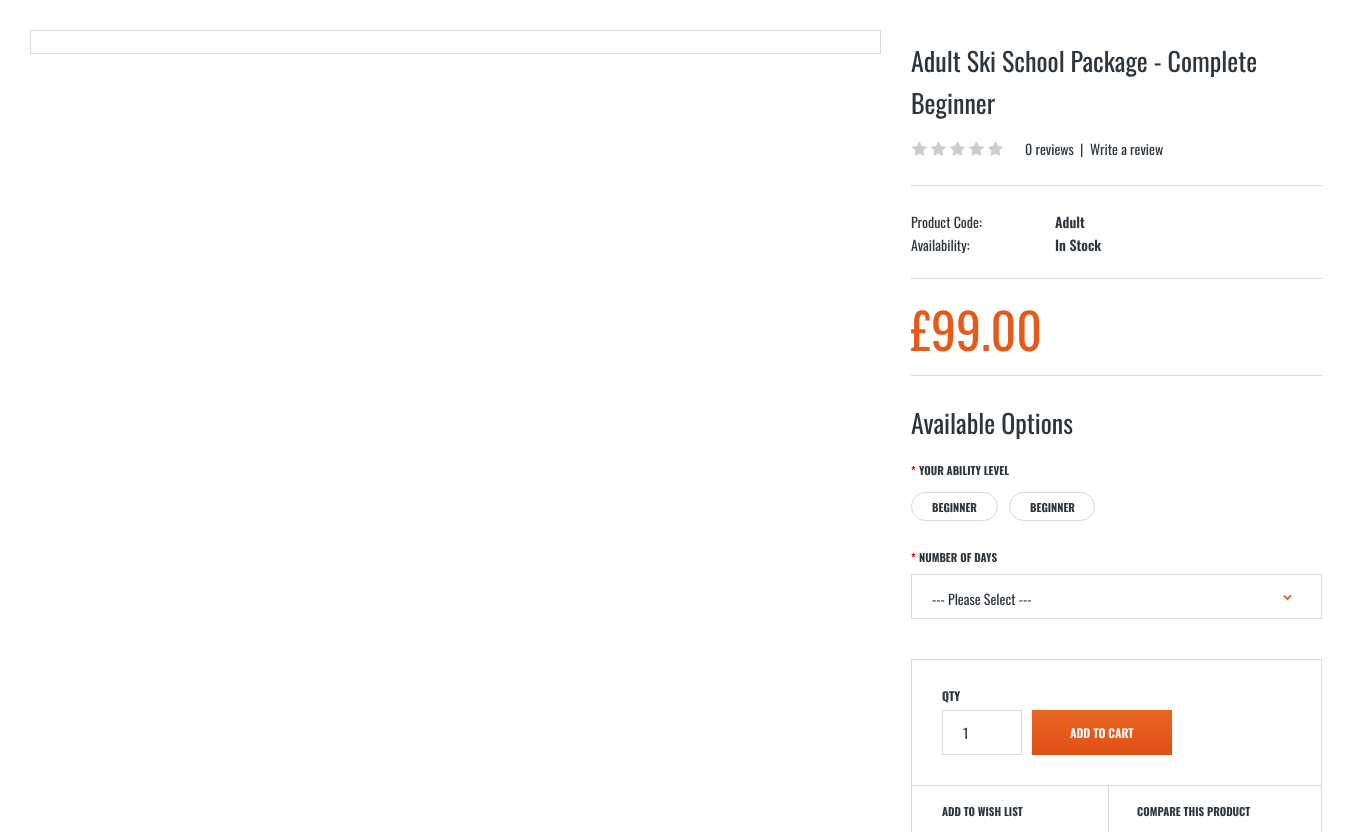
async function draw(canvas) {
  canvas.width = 1352
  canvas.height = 832
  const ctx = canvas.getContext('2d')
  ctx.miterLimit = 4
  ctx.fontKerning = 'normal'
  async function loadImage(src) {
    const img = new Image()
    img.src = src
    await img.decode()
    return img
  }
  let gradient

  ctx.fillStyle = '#fff'
  ctx.fillRect(0, 0, 1352, 832)
  ctx.strokeStyle = '#d9d9d9'
  ctx.strokeRect(30.5, 30.5, 850, 23)
  ctx.font = '26px Oswald'
  ctx.fillStyle = '#2e363d'
  ctx.fillText('Adult Ski School Package - Complete', 911, 72)
  ctx.fillText('Beginner', 911, 114)
  ctx.fillStyle = '#d9d9d9'
  ctx.fillRect(911, 185, 411, 1)
  ctx.drawImage(await loadImage('image0.png'), 912, 141, 15, 15)
  ctx.drawImage(await loadImage('image0.png'), 931, 141, 15, 15)
  ctx.drawImage(await loadImage('image0.png'), 950, 141, 15, 15)
  ctx.drawImage(await loadImage('image0.png'), 969, 141, 15, 15)
  ctx.drawImage(await loadImage('image0.png'), 988, 141, 15, 15)
  ctx.font = '14px Oswald'
  ctx.fillStyle = '#2e363d'
  ctx.fillText('0 reviews', 1025, 155)
  ctx.fillText('|', 1080, 155)
  ctx.fillText('Write a review', 1090, 155)
  ctx.fillStyle = '#d9d9d9'
  ctx.fillRect(911, 278, 411, 1)
  ctx.fillStyle = '#2e363d'
  ctx.fillText('Product Code:', 911, 228)
  ctx.font = '600 14px Oswald'
  ctx.fillText('Adult', 1055, 228)
  ctx.font = '14px Oswald'
  ctx.fillText('Availability:', 911, 251)
  ctx.font = '600 14px Oswald'
  ctx.fillText('In Stock', 1055, 251)
  ctx.font = '50px Oswald'
  ctx.fillStyle = '#e55a19'
  ctx.fillText('£99.00', 911, 351)
  ctx.fillStyle = '#d9d9d9'
  ctx.fillRect(911, 375, 411, 1)
  ctx.font = '26px Oswald'
  ctx.fillStyle = '#2e363d'
  ctx.fillText('Available Options', 911, 434)
  ctx.font = 'bold 11px Oswald'
  ctx.fillStyle = '#f00'
  ctx.fillText('*', 911, 475)
  ctx.fillStyle = '#2e363d'
  ctx.fillText('YOUR ABILITY LEVEL', 919, 475)
  ctx.beginPath()
  ctx.roundRect(911.5, 492.5, 86, 28, 14)
  ctx.stroke()
  ctx.fillText('BEGINNER', 932, 512)
  ctx.beginPath()
  ctx.roundRect(1009.5, 492.5, 85, 28, 14)
  ctx.stroke()
  ctx.fillText('BEGINNER', 1030, 512)
  ctx.fillStyle = '#f00'
  ctx.fillText('*', 911, 562)
  ctx.fillStyle = '#2e363d'
  ctx.fillText('NUMBER OF DAYS', 919, 562)
  ctx.strokeRect(911.5, 574.5, 410, 44)
  ctx.font = '14px Oswald'
  ctx.fillText('--- Please Select ---', 932, 605)
  ctx.drawImage(await loadImage('image1.png'), 1283, 595, 9, 6)
  ctx.strokeRect(911.5, 659.5, 410, 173)
  ctx.font = 'bold 12px Oswald'
  ctx.fillText('QTY', 942, 701)
  ctx.strokeRect(942.5, 710.5, 79, 44)
  ctx.font = '14px Oswald'
  ctx.fillText('1', 963, 739)
  gradient = ctx.createLinearGradient(1102, 710, 1102, 755)
  gradient.addColorStop(0, '#e14f15')
  gradient.addColorStop(0, '#e86623')
  gradient.addColorStop(0.99, '#e14f15')
  ctx.fillStyle = gradient
  ctx.fillRect(1032, 710, 140, 45)
  ctx.font = '600 12px Oswald'
  ctx.fillStyle = '#fff'
  ctx.fillText('ADD TO CART', 1070, 738)
  ctx.fillStyle = '#d9d9d9'
  ctx.fillRect(912, 785, 409, 1)
  ctx.font = 'bold 11px Oswald'
  ctx.fillStyle = '#2e363d'
  ctx.fillText('ADD TO WISH LIST', 942, 816)
  ctx.fillStyle = '#d9d9d9'
  ctx.fillRect(1108, 786, 1, 46)
  ctx.fillStyle = '#2e363d'
  ctx.fillText('COMPARE THIS PRODUCT', 1137, 816)
}

draw(document.querySelector('canvas'))
